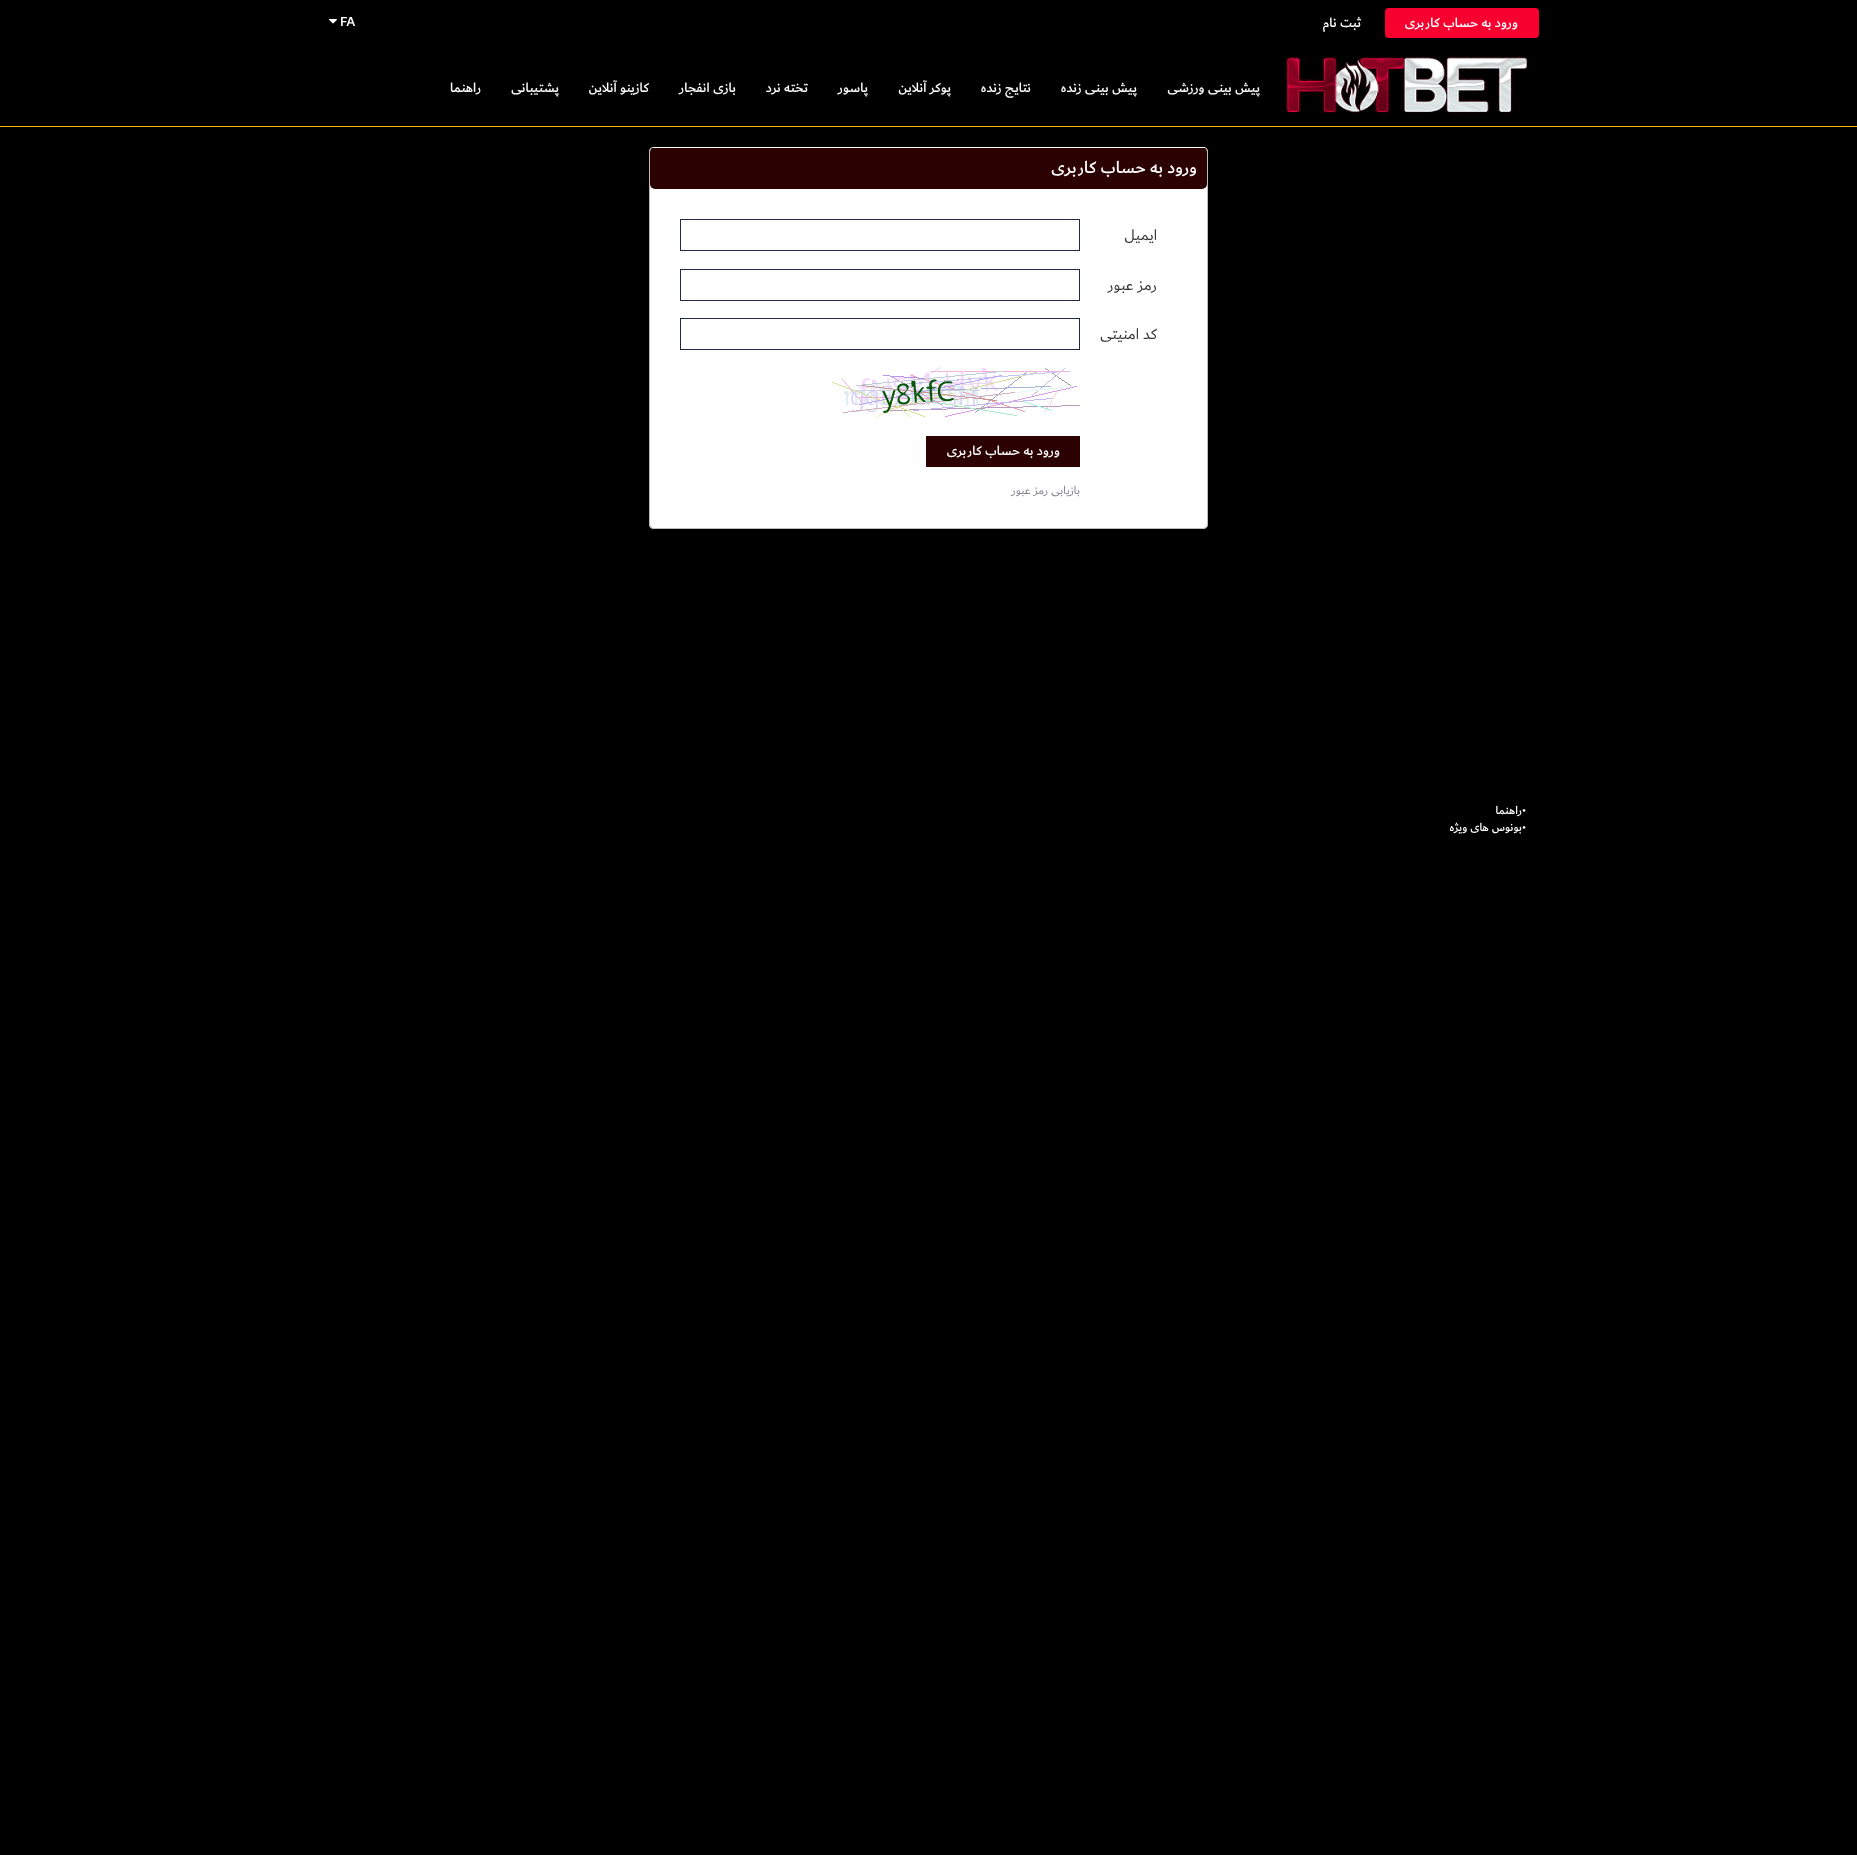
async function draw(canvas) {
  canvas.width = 1857
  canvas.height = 1855
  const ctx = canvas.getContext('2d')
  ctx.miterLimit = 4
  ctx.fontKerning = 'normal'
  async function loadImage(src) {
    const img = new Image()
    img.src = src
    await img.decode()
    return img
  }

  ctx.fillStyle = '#000'
  ctx.fillRect(0, 0, 1857, 1855)
  ctx.fillStyle = '#f7002f'
  ctx.beginPath()
  ctx.roundRect(1385, 8, 154, 30, 4)
  ctx.fill()
  ctx.direction = 'rtl'
  ctx.font = '500 14px "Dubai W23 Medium"'
  ctx.fillStyle = '#fff'
  ctx.fillText('ورود به حساب کاربری', 1518, 27)
  ctx.fillText('ثبت نام', 1361, 27)
  ctx.direction = 'ltr'
  ctx.fillText('FA', 340, 26)
  ctx.drawImage(await loadImage('image0.png'), 329, 19, 8, 5)
  ctx.drawImage(await loadImage('image1.png'), 1286, 56, 243, 58)
  ctx.direction = 'rtl'
  ctx.fillText('پیش بینی ورزشی', 1260, 92)
  ctx.fillText('پیش بینی زنده', 1137, 92)
  ctx.fillText('نتایج زنده', 1031, 92)
  ctx.fillText('پوکر آنلاین', 951, 92)
  ctx.fillText('پاسور', 868, 92)
  ctx.fillText('تخته نرد', 808, 92)
  ctx.fillText('بازی انفجار', 736, 92)
  ctx.fillText('کازینو آنلاین', 649, 92)
  ctx.fillText('پشتیبانی', 559, 92)
  ctx.fillText('راهنما', 481, 92)
  ctx.fillStyle = '#ffbb02'
  ctx.fillRect(0, 126, 1857, 1)
  ctx.fillStyle = '#fff'
  ctx.beginPath()
  ctx.roundRect(649, 147, 559, 382, 5)
  ctx.fill()
  ctx.fillStyle = '#bbb'
  ctx.beginPath()
  ctx.moveTo(654, 147)
  ctx.lineTo(1203, 147)
  ctx.bezierCurveTo(1206, 147, 1208, 149, 1208, 152)
  ctx.lineTo(1208, 524)
  ctx.bezierCurveTo(1208, 527, 1206, 529, 1203, 529)
  ctx.lineTo(654, 529)
  ctx.bezierCurveTo(651, 529, 649, 527, 649, 524)
  ctx.lineTo(649, 152)
  ctx.bezierCurveTo(649, 149, 651, 147, 654, 147)
  ctx.closePath()
  ctx.moveTo(654, 147)
  ctx.lineTo(1203, 147)
  ctx.bezierCurveTo(1205, 147, 1207, 149, 1207, 152)
  ctx.lineTo(1207, 524)
  ctx.bezierCurveTo(1207, 526, 1205, 528, 1203, 528)
  ctx.lineTo(654, 528)
  ctx.bezierCurveTo(652, 528, 650, 526, 650, 524)
  ctx.lineTo(650, 152)
  ctx.bezierCurveTo(650, 149, 652, 147, 654, 147)
  ctx.closePath()
  ctx.fill('evenodd')
  ctx.fillStyle = '#2b0101'
  ctx.beginPath()
  ctx.roundRect(650, 147, 557, 42, 5)
  ctx.fill()
  ctx.fillStyle = '#fff'
  ctx.fillRect(653, 147, 552, 1)
  ctx.font = '500 18px "Dubai W23 Medium"'
  ctx.fillText('ورود به حساب کاربری', 1197, 173)
  ctx.font = '16px "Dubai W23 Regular"'
  ctx.fillStyle = '#383838'
  ctx.fillText('ایمیل', 1157, 240)
  ctx.strokeStyle = '#202a47'
  ctx.strokeRect(680.5, 219.5, 399, 31)
  ctx.fillText('رمز عبور', 1157, 290)
  ctx.strokeRect(680.5, 269.5, 399, 31)
  ctx.fillText('کد امنیتی', 1157, 339)
  ctx.strokeRect(680.5, 318.5, 399, 31)
  ctx.drawImage(await loadImage('image2.png'), 832, 367, 248, 50)
  ctx.fillStyle = '#2b0101'
  ctx.fillRect(926, 436, 154, 31)
  ctx.font = '500 14px "Dubai W23 Medium"'
  ctx.fillStyle = '#fff'
  ctx.fillText('ورود به حساب کاربری', 1060, 455)
  ctx.font = '12px "Dubai W23 Regular"'
  ctx.fillStyle = '#82828e'
  ctx.fillText('بازیابی رمز عبور', 1080, 494)
  ctx.direction = 'ltr'
  ctx.font = '500 12px "Dubai W23 Medium"'
  ctx.fillStyle = '#fff'
  ctx.fillText('•', 1522, 814)
  ctx.direction = 'rtl'
  ctx.fillText('راهنما', 1522, 814)
  ctx.direction = 'ltr'
  ctx.fillText('•', 1522, 831)
  ctx.direction = 'rtl'
  ctx.fillText('بونوس های ویژه', 1522, 831)
}

draw(document.querySelector('canvas'))
